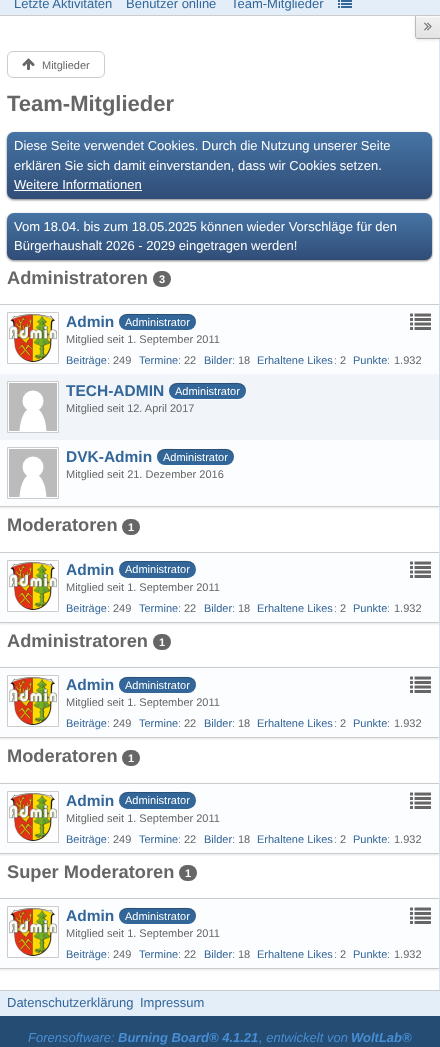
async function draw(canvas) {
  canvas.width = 440
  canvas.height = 1047
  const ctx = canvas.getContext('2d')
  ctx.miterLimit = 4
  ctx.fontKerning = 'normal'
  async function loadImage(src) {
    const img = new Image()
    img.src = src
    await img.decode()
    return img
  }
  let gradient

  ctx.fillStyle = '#254c73'
  ctx.fillRect(0, 0, 440, 1047)
  ctx.fillStyle = '#e4eef8'
  ctx.fillRect(0, 0, 440, 15)
  ctx.fillStyle = '#ccc'
  ctx.fillRect(0, 15, 440, 1)
  ctx.font = '13px Liberation Sans'
  ctx.fillStyle = '#369'
  ctx.fillText('Letzte Aktivitäten', 14, 8)
  ctx.fillText('Benutzer online', 126, 8)
  ctx.fillText('Team-Mitglieder', 231, 8)
  ctx.drawImage(await loadImage('image0.png'), 338, 0, 14, 8)
  ctx.fillStyle = '#d8e7f5'
  ctx.fillRect(439, 39, 1, 951)
  ctx.fillStyle = '#fff'
  ctx.fillRect(0, 16, 439, 974)
  ctx.fillStyle = '#0000001a'
  ctx.filter = 'blur(1.5px)'
  ctx.beginPath()
  ctx.roundRect(415, 17, 25, 23, 3)
  ctx.fill()
  ctx.filter = 'none'
  gradient = ctx.createLinearGradient(428, 16, 428, 38)
  gradient.addColorStop(0, '#fdfdfd')
  gradient.addColorStop(0.09, '#f0f0f0')
  gradient.addColorStop(1, '#e3e3e3')
  ctx.fillStyle = gradient
  ctx.beginPath()
  ctx.roundRect(416, 16, 24, 22, [0, 0, 0, 2])
  ctx.fill()
  ctx.fillStyle = '#a9a9a9'
  ctx.beginPath()
  ctx.moveTo(440, 39)
  ctx.lineTo(440, 38)
  ctx.lineTo(418, 38)
  ctx.bezierCurveTo(417.5, 38, 417, 38, 416.5, 37.5)
  ctx.lineTo(416, 38)
  ctx.bezierCurveTo(416.5, 38.5, 417, 39, 418, 39)
  ctx.closePath()
  ctx.fill()
  ctx.fillStyle = '#bbb'
  ctx.beginPath()
  ctx.moveTo(415, 16)
  ctx.lineTo(416, 16)
  ctx.lineTo(416, 36)
  ctx.bezierCurveTo(416, 36.5, 416, 37, 416.5, 37.5)
  ctx.lineTo(416, 38)
  ctx.bezierCurveTo(415.5, 37.5, 415, 37, 415, 36)
  ctx.closePath()
  ctx.fill()
  ctx.drawImage(await loadImage('image1.png'), 424, 22, 8, 9)
  ctx.beginPath()
  ctx.roundRect(7.5, 51.5, 97, 26, 5.5)
  ctx.strokeStyle = '#ccc'
  ctx.stroke()
  ctx.drawImage(await loadImage('image2.png'), 22, 58, 13, 12)
  ctx.font = '11px Liberation Sans'
  ctx.fillStyle = '#666'
  ctx.fillText('Mitglieder', 42, 69)
  ctx.font = 'bold 22px Liberation Sans'
  ctx.fillText('Team-Mitglieder', 7, 111)
  ctx.fillStyle = '#00000080'
  ctx.filter = 'blur(1px)'
  ctx.beginPath()
  ctx.roundRect(7, 133, 425, 67, 7)
  ctx.fill()
  ctx.filter = 'none'
  gradient = ctx.createLinearGradient(220, 132, 220, 199)
  gradient.addColorStop(0, '#4674a4')
  gradient.addColorStop(1, '#304d77')
  ctx.fillStyle = gradient
  ctx.beginPath()
  ctx.roundRect(7, 132, 425, 67, 7)
  ctx.fill()
  ctx.font = '13px Liberation Sans'
  ctx.fillStyle = '#fff'
  ctx.fillText('Diese Seite verwendet Cookies. Durch die Nutzung unserer Seite', 14, 150)
  ctx.fillText('erklären Sie sich damit einverstanden, dass wir Cookies setzen.', 14, 170)
  ctx.fillText('Weitere Informationen', 14, 189)
  ctx.fillRect(14, 190, 128, 1)
  ctx.fillStyle = '#00000080'
  ctx.filter = 'blur(1px)'
  ctx.beginPath()
  ctx.roundRect(7, 214, 425, 47, 7)
  ctx.fill()
  ctx.filter = 'none'
  gradient = ctx.createLinearGradient(220, 213, 220, 260)
  gradient.addColorStop(0, '#4674a4')
  gradient.addColorStop(1, '#304d77')
  ctx.fillStyle = gradient
  ctx.beginPath()
  ctx.roundRect(7, 213, 425, 47, 7)
  ctx.fill()
  ctx.fillStyle = '#fff'
  ctx.fillText('Vom 18.04. bis zum 18.05.2025 können wieder Vorschläge für den', 14, 231)
  ctx.fillText('Bürgerhaushalt 2026 - 2029 eingetragen werden!', 14, 250)
  ctx.font = 'bold 18.25px Liberation Sans'
  ctx.fillStyle = '#666'
  ctx.fillText('Administratoren', 7, 284)
  ctx.beginPath()
  ctx.roundRect(153, 271, 18, 16, 8)
  ctx.fill()
  ctx.font = 'bold 11px Liberation Sans'
  ctx.fillStyle = '#fff'
  ctx.fillText('3', 159, 283)
  ctx.fillStyle = '#0000001a'
  ctx.filter = 'blur(1px)'
  ctx.beginPath()
  ctx.rect(0, 305, 439, 203)
  ctx.fill()
  ctx.filter = 'none'
  ctx.fillStyle = '#fcfdfe'
  ctx.fillRect(0, 305, 439, 201)
  ctx.fillStyle = '#ccc'
  ctx.fillRect(0, 304, 439, 1)
  ctx.fillRect(0, 506, 439, 1)
  ctx.fillStyle = '#fff'
  ctx.beginPath()
  ctx.rect(7.5, 312.5, 51, 51)
  ctx.fill()
  ctx.stroke()
  ctx.drawImage(await loadImage('image3.png'), 9, 314, 48, 48)
  ctx.font = 'bold 15.5px Liberation Sans'
  ctx.fillStyle = '#369'
  ctx.fillText('Admin', 66, 327)
  ctx.fillStyle = '#fff'
  ctx.beginPath()
  ctx.moveTo(119, 322)
  ctx.bezierCurveTo(118, 333, 131, 331, 137, 331)
  ctx.lineTo(178, 331)
  ctx.bezierCurveTo(184, 331, 197, 333, 196, 322)
  ctx.bezierCurveTo(196, 327, 192, 330, 188, 330)
  ctx.lineTo(127, 330)
  ctx.bezierCurveTo(123, 330, 119, 327, 119, 322)
  ctx.closePath()
  ctx.fill()
  ctx.fillStyle = '#369'
  ctx.beginPath()
  ctx.roundRect(119, 314, 77, 16, 8)
  ctx.fill()
  ctx.fillStyle = '#00000033'
  ctx.beginPath()
  ctx.moveTo(127, 315)
  ctx.lineTo(188, 315)
  ctx.bezierCurveTo(192, 315, 196, 319, 196, 323)
  ctx.bezierCurveTo(197, 312, 184, 314, 178, 314)
  ctx.lineTo(137, 314)
  ctx.bezierCurveTo(131, 314, 118, 312, 119, 323)
  ctx.bezierCurveTo(119, 319, 123, 315, 127, 315)
  ctx.closePath()
  ctx.fill()
  ctx.font = '11px Liberation Sans'
  ctx.fillStyle = '#fff'
  ctx.fillText('Administrator', 125, 326)
  ctx.drawImage(await loadImage('image4.png'), 410, 313, 21, 17)
  ctx.fillStyle = '#666'
  ctx.fillText('Mitglied seit 1. September 2011', 66, 343)
  ctx.fillStyle = '#369'
  ctx.fillText('Beiträge', 66, 364)
  ctx.fillStyle = '#808080'
  ctx.fillText(':', 107, 364)
  ctx.fillStyle = '#666'
  ctx.fillText('249', 113, 364)
  ctx.fillStyle = '#369'
  ctx.fillText('Termine', 139, 364)
  ctx.fillStyle = '#808080'
  ctx.fillText(':', 178, 364)
  ctx.fillStyle = '#666'
  ctx.fillText('22', 184, 364)
  ctx.fillStyle = '#369'
  ctx.fillText('Bilder', 204, 364)
  ctx.fillStyle = '#808080'
  ctx.fillText(':', 232, 364)
  ctx.fillStyle = '#666'
  ctx.fillText('18', 238, 364)
  ctx.fillStyle = '#369'
  ctx.fillText('Erhaltene Likes', 257, 364)
  ctx.fillStyle = '#808080'
  ctx.fillText(':', 334, 364)
  ctx.fillStyle = '#666'
  ctx.fillText('2', 340, 364)
  ctx.fillStyle = '#369'
  ctx.fillText('Punkte', 353, 364)
  ctx.fillStyle = '#808080'
  ctx.fillText(':', 387, 364)
  ctx.fillStyle = '#666'
  ctx.fillText('1.932', 394, 364)
  ctx.fillStyle = '#f1f5fa'
  ctx.fillRect(0, 374, 439, 66)
  ctx.fillStyle = '#fff'
  ctx.beginPath()
  ctx.rect(7.5, 381.5, 51, 51)
  ctx.fill()
  ctx.stroke()
  ctx.fillStyle = '#bbb'
  ctx.fillRect(9, 383, 48, 48)
  ctx.fillStyle = '#fff'
  ctx.beginPath()
  ctx.moveTo(19.5, 431)
  ctx.bezierCurveTo(21.5, 399, 44.5, 399, 46.5, 431)
  ctx.fill()
  ctx.beginPath()
  ctx.arc(33, 401, 10.5, 0, 2 * Math.PI)
  ctx.fill()
  ctx.font = 'bold 15.5px Liberation Sans'
  ctx.fillStyle = '#369'
  ctx.fillText('TECH-ADMIN', 66, 396)
  ctx.fillStyle = '#fff'
  ctx.beginPath()
  ctx.moveTo(169, 392)
  ctx.bezierCurveTo(168, 402, 181, 400, 187, 400)
  ctx.lineTo(228, 400)
  ctx.bezierCurveTo(234, 400, 247, 402, 246, 392)
  ctx.bezierCurveTo(246, 396, 242, 399, 238, 399)
  ctx.lineTo(177, 399)
  ctx.bezierCurveTo(173, 399, 169, 396, 169, 392)
  ctx.closePath()
  ctx.fill()
  ctx.fillStyle = '#369'
  ctx.beginPath()
  ctx.roundRect(169, 383, 77, 16, 8)
  ctx.fill()
  ctx.fillStyle = '#00000033'
  ctx.beginPath()
  ctx.moveTo(177, 384)
  ctx.lineTo(238, 384)
  ctx.bezierCurveTo(242, 384, 246, 388, 246, 392)
  ctx.bezierCurveTo(247, 381, 234, 383, 228, 383)
  ctx.lineTo(187, 383)
  ctx.bezierCurveTo(181, 383, 168, 381, 169, 392)
  ctx.bezierCurveTo(169, 388, 173, 384, 177, 384)
  ctx.closePath()
  ctx.fill()
  ctx.font = '11px Liberation Sans'
  ctx.fillStyle = '#fff'
  ctx.fillText('Administrator', 175, 395)
  ctx.fillStyle = '#666'
  ctx.fillText('Mitglied seit 12. April 2017', 66, 412)
  ctx.fillStyle = '#fff'
  ctx.beginPath()
  ctx.rect(7.5, 447.5, 51, 51)
  ctx.fill()
  ctx.stroke()
  ctx.fillStyle = '#bbb'
  ctx.fillRect(9, 449, 48, 48)
  ctx.fillStyle = '#fff'
  ctx.beginPath()
  ctx.moveTo(19.5, 497)
  ctx.bezierCurveTo(21.5, 465, 44.5, 465, 46.5, 497)
  ctx.fill()
  ctx.beginPath()
  ctx.arc(33, 467, 10.5, 0, 2 * Math.PI)
  ctx.fill()
  ctx.font = 'bold 15.5px Liberation Sans'
  ctx.fillStyle = '#369'
  ctx.fillText('DVK-Admin', 66, 462)
  ctx.fillStyle = '#fff'
  ctx.beginPath()
  ctx.moveTo(157, 458)
  ctx.bezierCurveTo(156, 468, 169, 466, 175, 466)
  ctx.lineTo(216, 466)
  ctx.bezierCurveTo(222, 466, 235, 468, 234, 458)
  ctx.bezierCurveTo(234, 462, 230, 465, 226, 465)
  ctx.lineTo(165, 465)
  ctx.bezierCurveTo(161, 465, 157, 462, 157, 458)
  ctx.closePath()
  ctx.fill()
  ctx.fillStyle = '#369'
  ctx.beginPath()
  ctx.roundRect(157, 449, 77, 16, 8)
  ctx.fill()
  ctx.fillStyle = '#00000033'
  ctx.beginPath()
  ctx.moveTo(165, 450)
  ctx.lineTo(226, 450)
  ctx.bezierCurveTo(230, 450, 234, 454, 234, 458)
  ctx.bezierCurveTo(235, 447, 222, 449, 216, 449)
  ctx.lineTo(175, 449)
  ctx.bezierCurveTo(169, 449, 156, 447, 157, 458)
  ctx.bezierCurveTo(157, 454, 161, 450, 165, 450)
  ctx.closePath()
  ctx.fill()
  ctx.font = '11px Liberation Sans'
  ctx.fillStyle = '#fff'
  ctx.fillText('Administrator', 163, 461)
  ctx.fillStyle = '#666'
  ctx.fillText('Mitglied seit 21. Dezember 2016', 66, 478)
  ctx.font = 'bold 18.25px Liberation Sans'
  ctx.fillText('Moderatoren', 7, 531)
  ctx.beginPath()
  ctx.roundRect(122, 519, 18, 16, 8)
  ctx.fill()
  ctx.font = 'bold 11px Liberation Sans'
  ctx.fillStyle = '#fff'
  ctx.fillText('1', 128, 531)
  ctx.fillStyle = '#0000001a'
  ctx.filter = 'blur(1px)'
  ctx.beginPath()
  ctx.rect(0, 553, 439, 71)
  ctx.fill()
  ctx.filter = 'none'
  ctx.fillStyle = '#fcfdfe'
  ctx.fillRect(0, 553, 439, 69)
  ctx.fillStyle = '#ccc'
  ctx.fillRect(0, 552, 439, 1)
  ctx.fillRect(0, 622, 439, 1)
  ctx.fillStyle = '#fff'
  ctx.beginPath()
  ctx.rect(7.5, 560.5, 51, 51)
  ctx.fill()
  ctx.stroke()
  ctx.drawImage(await loadImage('image3.png'), 9, 562, 48, 48)
  ctx.font = 'bold 15.5px Liberation Sans'
  ctx.fillStyle = '#369'
  ctx.fillText('Admin', 66, 575)
  ctx.fillStyle = '#fff'
  ctx.beginPath()
  ctx.moveTo(119, 570)
  ctx.bezierCurveTo(118, 581, 131, 579, 138, 579)
  ctx.lineTo(178, 579)
  ctx.bezierCurveTo(184, 579, 197, 581, 196, 570)
  ctx.bezierCurveTo(196, 574, 192, 578, 188, 578)
  ctx.lineTo(128, 578)
  ctx.bezierCurveTo(123, 578, 119, 574, 119, 570)
  ctx.closePath()
  ctx.fill()
  ctx.fillStyle = '#369'
  ctx.beginPath()
  ctx.roundRect(119, 561, 77, 17, 8.5)
  ctx.fill()
  ctx.fillStyle = '#00000033'
  ctx.beginPath()
  ctx.moveTo(128, 562)
  ctx.lineTo(188, 562)
  ctx.bezierCurveTo(192, 562, 196, 566, 196, 570)
  ctx.bezierCurveTo(196, 559, 184, 561, 178, 561)
  ctx.lineTo(138, 561)
  ctx.bezierCurveTo(131, 561, 119, 559, 119, 570)
  ctx.bezierCurveTo(119, 566, 123, 562, 128, 562)
  ctx.closePath()
  ctx.fill()
  ctx.font = '11px Liberation Sans'
  ctx.fillStyle = '#fff'
  ctx.fillText('Administrator', 125, 573)
  ctx.drawImage(await loadImage('image4.png'), 410, 561, 21, 17)
  ctx.fillStyle = '#666'
  ctx.fillText('Mitglied seit 1. September 2011', 66, 591)
  ctx.fillStyle = '#369'
  ctx.fillText('Beiträge', 66, 612)
  ctx.fillStyle = '#808080'
  ctx.fillText(':', 107, 612)
  ctx.fillStyle = '#666'
  ctx.fillText('249', 113, 612)
  ctx.fillStyle = '#369'
  ctx.fillText('Termine', 139, 612)
  ctx.fillStyle = '#808080'
  ctx.fillText(':', 178, 612)
  ctx.fillStyle = '#666'
  ctx.fillText('22', 184, 612)
  ctx.fillStyle = '#369'
  ctx.fillText('Bilder', 204, 612)
  ctx.fillStyle = '#808080'
  ctx.fillText(':', 232, 612)
  ctx.fillStyle = '#666'
  ctx.fillText('18', 238, 612)
  ctx.fillStyle = '#369'
  ctx.fillText('Erhaltene Likes', 257, 612)
  ctx.fillStyle = '#808080'
  ctx.fillText(':', 334, 612)
  ctx.fillStyle = '#666'
  ctx.fillText('2', 340, 612)
  ctx.fillStyle = '#369'
  ctx.fillText('Punkte', 353, 612)
  ctx.fillStyle = '#808080'
  ctx.fillText(':', 387, 612)
  ctx.fillStyle = '#666'
  ctx.fillText('1.932', 394, 612)
  ctx.font = 'bold 18.25px Liberation Sans'
  ctx.fillText('Administratoren', 7, 647)
  ctx.beginPath()
  ctx.roundRect(153, 634, 18, 16, 8)
  ctx.fill()
  ctx.font = 'bold 11px Liberation Sans'
  ctx.fillStyle = '#fff'
  ctx.fillText('1', 159, 646)
  ctx.fillStyle = '#0000001a'
  ctx.filter = 'blur(1px)'
  ctx.beginPath()
  ctx.rect(0, 668, 439, 71)
  ctx.fill()
  ctx.filter = 'none'
  ctx.fillStyle = '#fcfdfe'
  ctx.fillRect(0, 668, 439, 69)
  ctx.fillStyle = '#ccc'
  ctx.fillRect(0, 667, 439, 1)
  ctx.fillRect(0, 737, 439, 1)
  ctx.fillStyle = '#fff'
  ctx.beginPath()
  ctx.rect(7.5, 675.5, 51, 51)
  ctx.fill()
  ctx.stroke()
  ctx.drawImage(await loadImage('image3.png'), 9, 677, 48, 48)
  ctx.font = 'bold 15.5px Liberation Sans'
  ctx.fillStyle = '#369'
  ctx.fillText('Admin', 66, 690)
  ctx.fillStyle = '#fff'
  ctx.beginPath()
  ctx.moveTo(119, 686)
  ctx.bezierCurveTo(118, 696, 131, 694, 137, 694)
  ctx.lineTo(178, 694)
  ctx.bezierCurveTo(184, 694, 197, 696, 196, 686)
  ctx.bezierCurveTo(196, 690, 192, 693, 188, 693)
  ctx.lineTo(127, 693)
  ctx.bezierCurveTo(123, 693, 119, 690, 119, 686)
  ctx.closePath()
  ctx.fill()
  ctx.fillStyle = '#369'
  ctx.beginPath()
  ctx.roundRect(119, 677, 77, 16, 8)
  ctx.fill()
  ctx.fillStyle = '#00000033'
  ctx.beginPath()
  ctx.moveTo(127, 678)
  ctx.lineTo(188, 678)
  ctx.bezierCurveTo(192, 678, 196, 682, 196, 686)
  ctx.bezierCurveTo(197, 675, 184, 677, 178, 677)
  ctx.lineTo(137, 677)
  ctx.bezierCurveTo(131, 677, 118, 675, 119, 686)
  ctx.bezierCurveTo(119, 682, 123, 678, 127, 678)
  ctx.closePath()
  ctx.fill()
  ctx.font = '11px Liberation Sans'
  ctx.fillStyle = '#fff'
  ctx.fillText('Administrator', 125, 689)
  ctx.drawImage(await loadImage('image4.png'), 410, 676, 21, 17)
  ctx.fillStyle = '#666'
  ctx.fillText('Mitglied seit 1. September 2011', 66, 706)
  ctx.fillStyle = '#369'
  ctx.fillText('Beiträge', 66, 727)
  ctx.fillStyle = '#808080'
  ctx.fillText(':', 107, 727)
  ctx.fillStyle = '#666'
  ctx.fillText('249', 113, 727)
  ctx.fillStyle = '#369'
  ctx.fillText('Termine', 139, 727)
  ctx.fillStyle = '#808080'
  ctx.fillText(':', 178, 727)
  ctx.fillStyle = '#666'
  ctx.fillText('22', 184, 727)
  ctx.fillStyle = '#369'
  ctx.fillText('Bilder', 204, 727)
  ctx.fillStyle = '#808080'
  ctx.fillText(':', 232, 727)
  ctx.fillStyle = '#666'
  ctx.fillText('18', 238, 727)
  ctx.fillStyle = '#369'
  ctx.fillText('Erhaltene Likes', 257, 727)
  ctx.fillStyle = '#808080'
  ctx.fillText(':', 334, 727)
  ctx.fillStyle = '#666'
  ctx.fillText('2', 340, 727)
  ctx.fillStyle = '#369'
  ctx.fillText('Punkte', 353, 727)
  ctx.fillStyle = '#808080'
  ctx.fillText(':', 387, 727)
  ctx.fillStyle = '#666'
  ctx.fillText('1.932', 394, 727)
  ctx.font = 'bold 18.25px Liberation Sans'
  ctx.fillText('Moderatoren', 7, 762)
  ctx.beginPath()
  ctx.roundRect(122, 750, 18, 16, 8)
  ctx.fill()
  ctx.font = 'bold 11px Liberation Sans'
  ctx.fillStyle = '#fff'
  ctx.fillText('1', 128, 762)
  ctx.fillStyle = '#0000001a'
  ctx.filter = 'blur(1px)'
  ctx.beginPath()
  ctx.rect(0, 784, 439, 71)
  ctx.fill()
  ctx.filter = 'none'
  ctx.fillStyle = '#fcfdfe'
  ctx.fillRect(0, 784, 439, 69)
  ctx.fillStyle = '#ccc'
  ctx.fillRect(0, 783, 439, 1)
  ctx.fillRect(0, 853, 439, 1)
  ctx.fillStyle = '#fff'
  ctx.beginPath()
  ctx.rect(7.5, 791.5, 51, 51)
  ctx.fill()
  ctx.stroke()
  ctx.drawImage(await loadImage('image3.png'), 9, 793, 48, 48)
  ctx.font = 'bold 15.5px Liberation Sans'
  ctx.fillStyle = '#369'
  ctx.fillText('Admin', 66, 806)
  ctx.fillStyle = '#fff'
  ctx.beginPath()
  ctx.moveTo(119, 801)
  ctx.bezierCurveTo(118, 812, 131, 810, 138, 810)
  ctx.lineTo(178, 810)
  ctx.bezierCurveTo(184, 810, 197, 812, 196, 801)
  ctx.bezierCurveTo(196, 805, 192, 809, 188, 809)
  ctx.lineTo(128, 809)
  ctx.bezierCurveTo(123, 809, 119, 805, 119, 801)
  ctx.closePath()
  ctx.fill()
  ctx.fillStyle = '#369'
  ctx.beginPath()
  ctx.roundRect(119, 792, 77, 17, 8.5)
  ctx.fill()
  ctx.fillStyle = '#00000033'
  ctx.beginPath()
  ctx.moveTo(128, 793)
  ctx.lineTo(188, 793)
  ctx.bezierCurveTo(192, 793, 196, 797, 196, 801)
  ctx.bezierCurveTo(197, 790, 184, 792, 178, 792)
  ctx.lineTo(138, 792)
  ctx.bezierCurveTo(131, 792, 118, 790, 119, 801)
  ctx.bezierCurveTo(119, 797, 123, 793, 128, 793)
  ctx.closePath()
  ctx.fill()
  ctx.font = '11px Liberation Sans'
  ctx.fillStyle = '#fff'
  ctx.fillText('Administrator', 125, 804)
  ctx.drawImage(await loadImage('image4.png'), 410, 792, 21, 17)
  ctx.fillStyle = '#666'
  ctx.fillText('Mitglied seit 1. September 2011', 66, 822)
  ctx.fillStyle = '#369'
  ctx.fillText('Beiträge', 66, 843)
  ctx.fillStyle = '#808080'
  ctx.fillText(':', 107, 843)
  ctx.fillStyle = '#666'
  ctx.fillText('249', 113, 843)
  ctx.fillStyle = '#369'
  ctx.fillText('Termine', 139, 843)
  ctx.fillStyle = '#808080'
  ctx.fillText(':', 178, 843)
  ctx.fillStyle = '#666'
  ctx.fillText('22', 184, 843)
  ctx.fillStyle = '#369'
  ctx.fillText('Bilder', 204, 843)
  ctx.fillStyle = '#808080'
  ctx.fillText(':', 232, 843)
  ctx.fillStyle = '#666'
  ctx.fillText('18', 238, 843)
  ctx.fillStyle = '#369'
  ctx.fillText('Erhaltene Likes', 257, 843)
  ctx.fillStyle = '#808080'
  ctx.fillText(':', 334, 843)
  ctx.fillStyle = '#666'
  ctx.fillText('2', 340, 843)
  ctx.fillStyle = '#369'
  ctx.fillText('Punkte', 353, 843)
  ctx.fillStyle = '#808080'
  ctx.fillText(':', 387, 843)
  ctx.fillStyle = '#666'
  ctx.fillText('1.932', 394, 843)
  ctx.font = 'bold 18.25px Liberation Sans'
  ctx.fillText('Super Moderatoren', 7, 878)
  ctx.beginPath()
  ctx.roundRect(179, 865, 18, 16, 8)
  ctx.fill()
  ctx.font = 'bold 11px Liberation Sans'
  ctx.fillStyle = '#fff'
  ctx.fillText('1', 185, 877)
  ctx.fillStyle = '#0000001a'
  ctx.filter = 'blur(1px)'
  ctx.beginPath()
  ctx.rect(0, 899, 439, 71)
  ctx.fill()
  ctx.filter = 'none'
  ctx.fillStyle = '#fcfdfe'
  ctx.fillRect(0, 899, 439, 69)
  ctx.fillStyle = '#ccc'
  ctx.fillRect(0, 898, 439, 1)
  ctx.fillRect(0, 968, 439, 1)
  ctx.fillStyle = '#fff'
  ctx.beginPath()
  ctx.rect(7.5, 906.5, 51, 51)
  ctx.fill()
  ctx.stroke()
  ctx.drawImage(await loadImage('image3.png'), 9, 908, 48, 48)
  ctx.font = 'bold 15.5px Liberation Sans'
  ctx.fillStyle = '#369'
  ctx.fillText('Admin', 66, 921)
  ctx.fillStyle = '#fff'
  ctx.beginPath()
  ctx.moveTo(119, 916)
  ctx.bezierCurveTo(118, 927, 131, 925, 137, 925)
  ctx.lineTo(178, 925)
  ctx.bezierCurveTo(184, 925, 197, 927, 196, 916)
  ctx.bezierCurveTo(196, 921, 192, 924, 188, 924)
  ctx.lineTo(127, 924)
  ctx.bezierCurveTo(123, 924, 119, 921, 119, 916)
  ctx.closePath()
  ctx.fill()
  ctx.fillStyle = '#369'
  ctx.beginPath()
  ctx.roundRect(119, 908, 77, 16, 8)
  ctx.fill()
  ctx.fillStyle = '#00000033'
  ctx.beginPath()
  ctx.moveTo(127, 909)
  ctx.lineTo(188, 909)
  ctx.bezierCurveTo(192, 909, 196, 913, 196, 917)
  ctx.bezierCurveTo(197, 906, 184, 908, 178, 908)
  ctx.lineTo(137, 908)
  ctx.bezierCurveTo(131, 908, 118, 906, 119, 917)
  ctx.bezierCurveTo(119, 913, 123, 909, 127, 909)
  ctx.closePath()
  ctx.fill()
  ctx.font = '11px Liberation Sans'
  ctx.fillStyle = '#fff'
  ctx.fillText('Administrator', 125, 920)
  ctx.drawImage(await loadImage('image4.png'), 410, 907, 21, 17)
  ctx.fillStyle = '#666'
  ctx.fillText('Mitglied seit 1. September 2011', 66, 937)
  ctx.fillStyle = '#369'
  ctx.fillText('Beiträge', 66, 958)
  ctx.fillStyle = '#808080'
  ctx.fillText(':', 107, 958)
  ctx.fillStyle = '#666'
  ctx.fillText('249', 113, 958)
  ctx.fillStyle = '#369'
  ctx.fillText('Termine', 139, 958)
  ctx.fillStyle = '#808080'
  ctx.fillText(':', 178, 958)
  ctx.fillStyle = '#666'
  ctx.fillText('22', 184, 958)
  ctx.fillStyle = '#369'
  ctx.fillText('Bilder', 204, 958)
  ctx.fillStyle = '#808080'
  ctx.fillText(':', 232, 958)
  ctx.fillStyle = '#666'
  ctx.fillText('18', 238, 958)
  ctx.fillStyle = '#369'
  ctx.fillText('Erhaltene Likes', 257, 958)
  ctx.fillStyle = '#808080'
  ctx.fillText(':', 334, 958)
  ctx.fillStyle = '#666'
  ctx.fillText('2', 340, 958)
  ctx.fillStyle = '#369'
  ctx.fillText('Punkte', 353, 958)
  ctx.fillStyle = '#808080'
  ctx.fillText(':', 387, 958)
  ctx.fillStyle = '#666'
  ctx.fillText('1.932', 394, 958)
  ctx.fillStyle = '#e4eef8'
  ctx.fillRect(0, 991, 440, 25)
  ctx.fillStyle = '#ccc'
  ctx.fillRect(0, 990, 440, 1)
  ctx.font = '13px Liberation Sans'
  ctx.fillStyle = '#369'
  ctx.fillText('Datenschutzerklärung', 7, 1007)
  ctx.fillText('Impressum', 140, 1007)
  ctx.font = 'italic 13px Liberation Sans'
  ctx.fillStyle = '#488ed4'
  ctx.fillText('Forensoftware:', 28, 1042)
  ctx.font = 'italic bold 13px Liberation Sans'
  ctx.fillText('Burning Board® 4.1.21', 118, 1042)
  ctx.font = 'italic 13px Liberation Sans'
  ctx.fillText(', entwickelt von', 259, 1042)
  ctx.font = 'italic bold 13px Liberation Sans'
  ctx.fillText('WoltLab®', 351, 1042)
}

draw(document.querySelector('canvas'))
